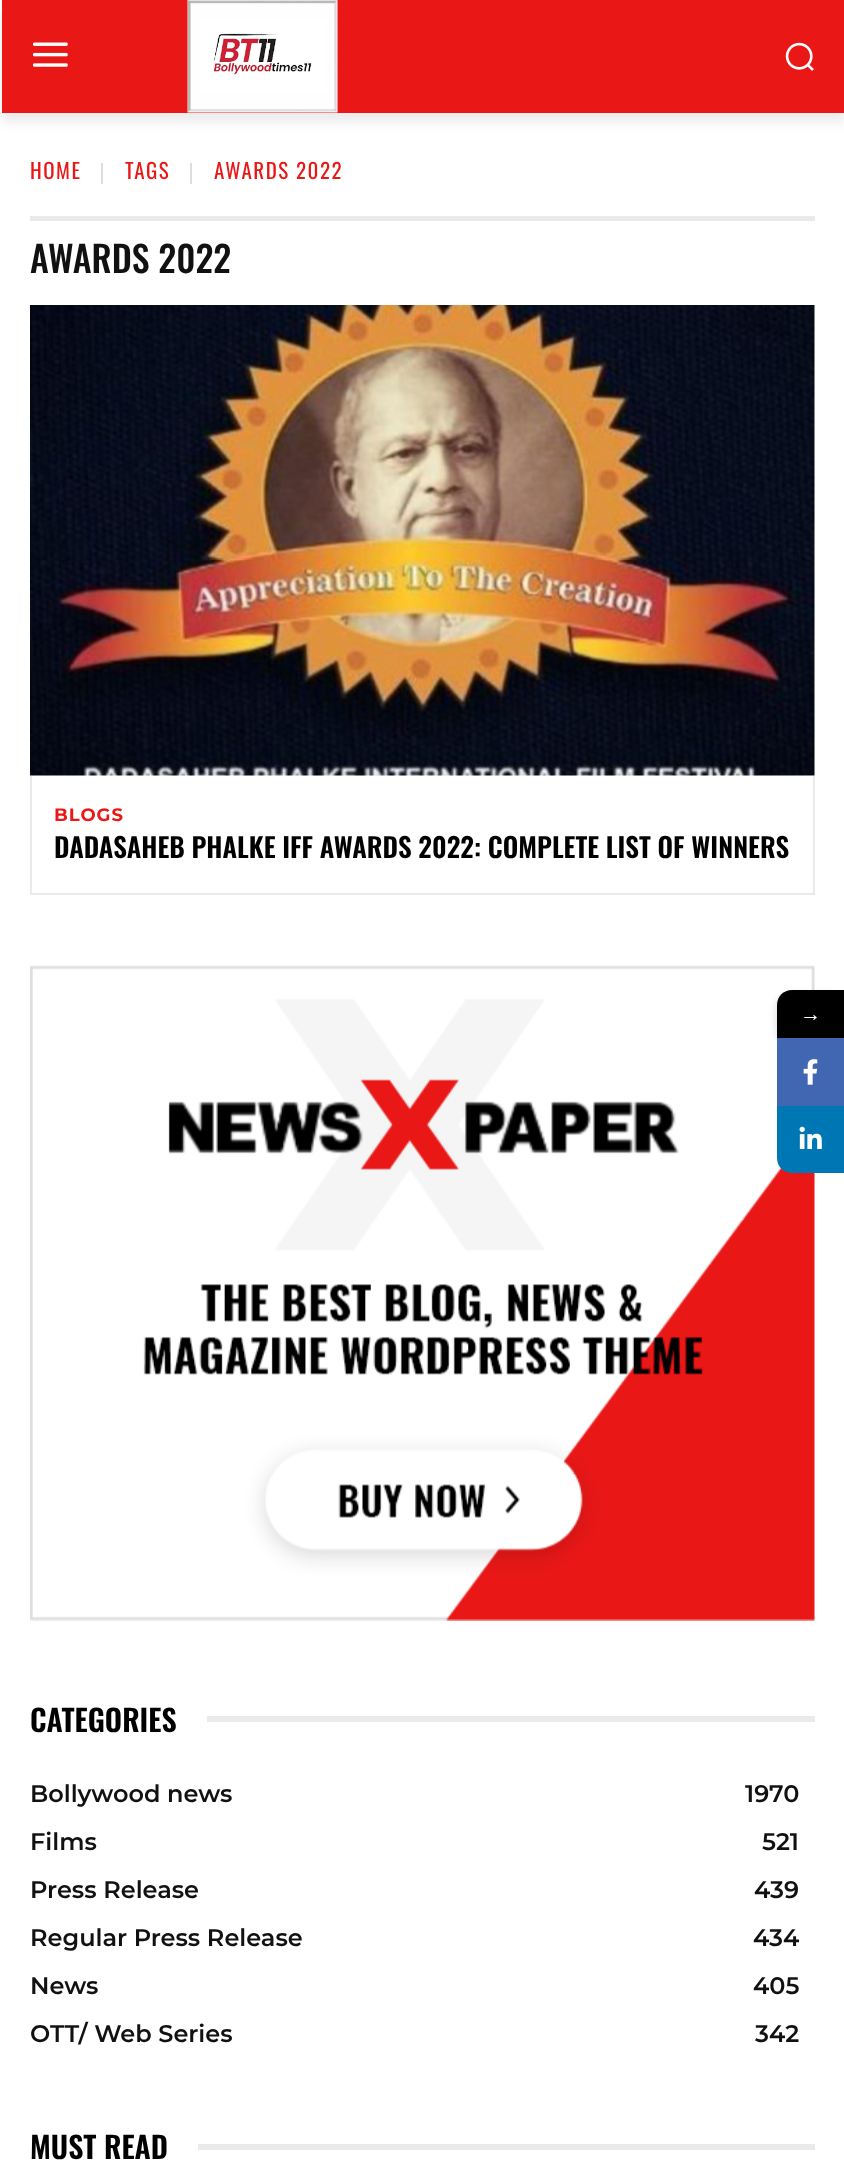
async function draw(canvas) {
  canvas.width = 844
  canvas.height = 2161
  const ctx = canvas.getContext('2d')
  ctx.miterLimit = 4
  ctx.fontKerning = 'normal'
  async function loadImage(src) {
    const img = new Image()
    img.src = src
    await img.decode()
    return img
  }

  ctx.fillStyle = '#fff'
  ctx.fillRect(0, 0, 844, 2161)
  ctx.fillStyle = '#ea1717'
  ctx.fillRect(2, 0, 842, 113)
  ctx.drawImage(await loadImage('image0.png'), 33, 42, 35, 25)
  ctx.drawImage(await loadImage('image1.png'), 187, 0, 151, 113)
  ctx.drawImage(await loadImage('image2.png'), 785, 42, 29, 29)
  ctx.save()
  ctx.beginPath()
  ctx.moveTo(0, 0)
  ctx.lineTo(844, 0)
  ctx.lineTo(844, 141)
  ctx.lineTo(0, 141)
  ctx.closePath()
  ctx.moveTo(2, 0)
  ctx.lineTo(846, 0)
  ctx.lineTo(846, 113)
  ctx.lineTo(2, 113)
  ctx.closePath()
  ctx.clip('evenodd')
  ctx.fillStyle = '#00000014'
  ctx.filter = 'blur(6px)'
  ctx.beginPath()
  ctx.rect(2, 9, 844, 113)
  ctx.fill()
  ctx.filter = 'none'
  ctx.restore()
  ctx.letterSpacing = '1.5px'
  ctx.font = '21px Oswald'
  ctx.fillText('HOME', 30, 179)
  ctx.fillStyle = '#ddd'
  ctx.fillRect(101, 163, 2, 21)
  ctx.fillStyle = '#ea1717'
  ctx.fillText('TAGS', 125, 179)
  ctx.fillStyle = '#ddd'
  ctx.fillRect(190, 163, 2, 21)
  ctx.fillStyle = '#ea1717'
  ctx.fillText('AWARDS 2022', 214, 179)
  ctx.fillStyle = '#eaeaea'
  ctx.fillRect(30, 216, 785, 5)
  ctx.letterSpacing = '0px'
  ctx.font = '500 36px Oswald'
  ctx.fillStyle = '#111'
  ctx.fillText('AWARDS 2022', 30, 273)
  ctx.drawImage(await loadImage('image3.png'), 30, 305, 785, 471)
  ctx.fillStyle = '#eaeaea'
  ctx.fillRect(813, 776, 2, 118)
  ctx.fillRect(30, 893, 785, 2)
  ctx.fillRect(30, 776, 2, 118)
  ctx.letterSpacing = '1px'
  ctx.font = 'bold 18px Montserrat'
  ctx.fillStyle = '#ea1717'
  ctx.fillText('BLOGS', 54, 821)
  ctx.letterSpacing = '0px'
  ctx.font = '600 27px Oswald'
  ctx.fillStyle = '#000'
  ctx.fillText('DADASAHEB PHALKE IFF AWARDS 2022: COMPLETE LIST OF WINNERS', 54, 858)
  ctx.drawImage(await loadImage('image4.png'), 30, 965, 785, 656)
  ctx.font = '600 30px Oswald'
  ctx.fillText('CATEGORIES', 30, 1732)
  ctx.fillStyle = '#eaeaea'
  ctx.fillRect(207, 1716, 608, 6)
  ctx.font = '600 24px Montserrat'
  ctx.fillStyle = '#111'
  ctx.fillText('Bollywood news', 30, 1802)
  ctx.fillText('1970', 745, 1802)
  ctx.fillText('Films', 30, 1850)
  ctx.fillText('521', 762, 1850)
  ctx.fillText('Press Release', 30, 1898)
  ctx.fillText('439', 754, 1898)
  ctx.fillText('Regular Press Release', 30, 1946)
  ctx.fillText('434', 753, 1946)
  ctx.fillText('News', 30, 1994)
  ctx.fillText('405', 753, 1994)
  ctx.fillText('OTT/ Web Series', 30, 2042)
  ctx.fillText('342', 755, 2042)
  ctx.font = '600 30px Oswald'
  ctx.fillStyle = '#000'
  ctx.fillText('MUST READ', 30, 2159)
  ctx.fillStyle = '#eaeaea'
  ctx.fillRect(198, 2144, 617, 6)
  ctx.fillStyle = '#00000029'
  ctx.filter = 'blur(4.5px)'
  ctx.beginPath()
  ctx.roundRect(777, 995, 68, 48, 15)
  ctx.fill()
  ctx.filter = 'none'
  ctx.fillStyle = '#000'
  ctx.beginPath()
  ctx.moveTo(792, 990)
  ctx.lineTo(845, 990)
  ctx.lineTo(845, 1038)
  ctx.lineTo(777, 1038)
  ctx.lineTo(777, 1005)
  ctx.bezierCurveTo(777, 996.5, 783.5, 990, 792, 990)
  ctx.closePath()
  ctx.fill()
  ctx.font = '21px Liberation Serif'
  ctx.fillStyle = '#fff'
  ctx.fillText('→', 800, 1021)
  ctx.fillStyle = '#4267b2'
  ctx.fillRect(777, 1038, 67, 68)
  ctx.drawImage(await loadImage('image5.png'), 803, 1059, 15, 26)
  ctx.fillStyle = '#0077b5'
  ctx.beginPath()
  ctx.moveTo(777, 1106)
  ctx.lineTo(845, 1106)
  ctx.lineTo(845, 1173)
  ctx.lineTo(792, 1173)
  ctx.bezierCurveTo(783.5, 1173, 777, 1166.5, 777, 1158)
  ctx.closePath()
  ctx.fill()
  ctx.drawImage(await loadImage('image6.png'), 799, 1126, 23, 23)
}

draw(document.querySelector('canvas'))
